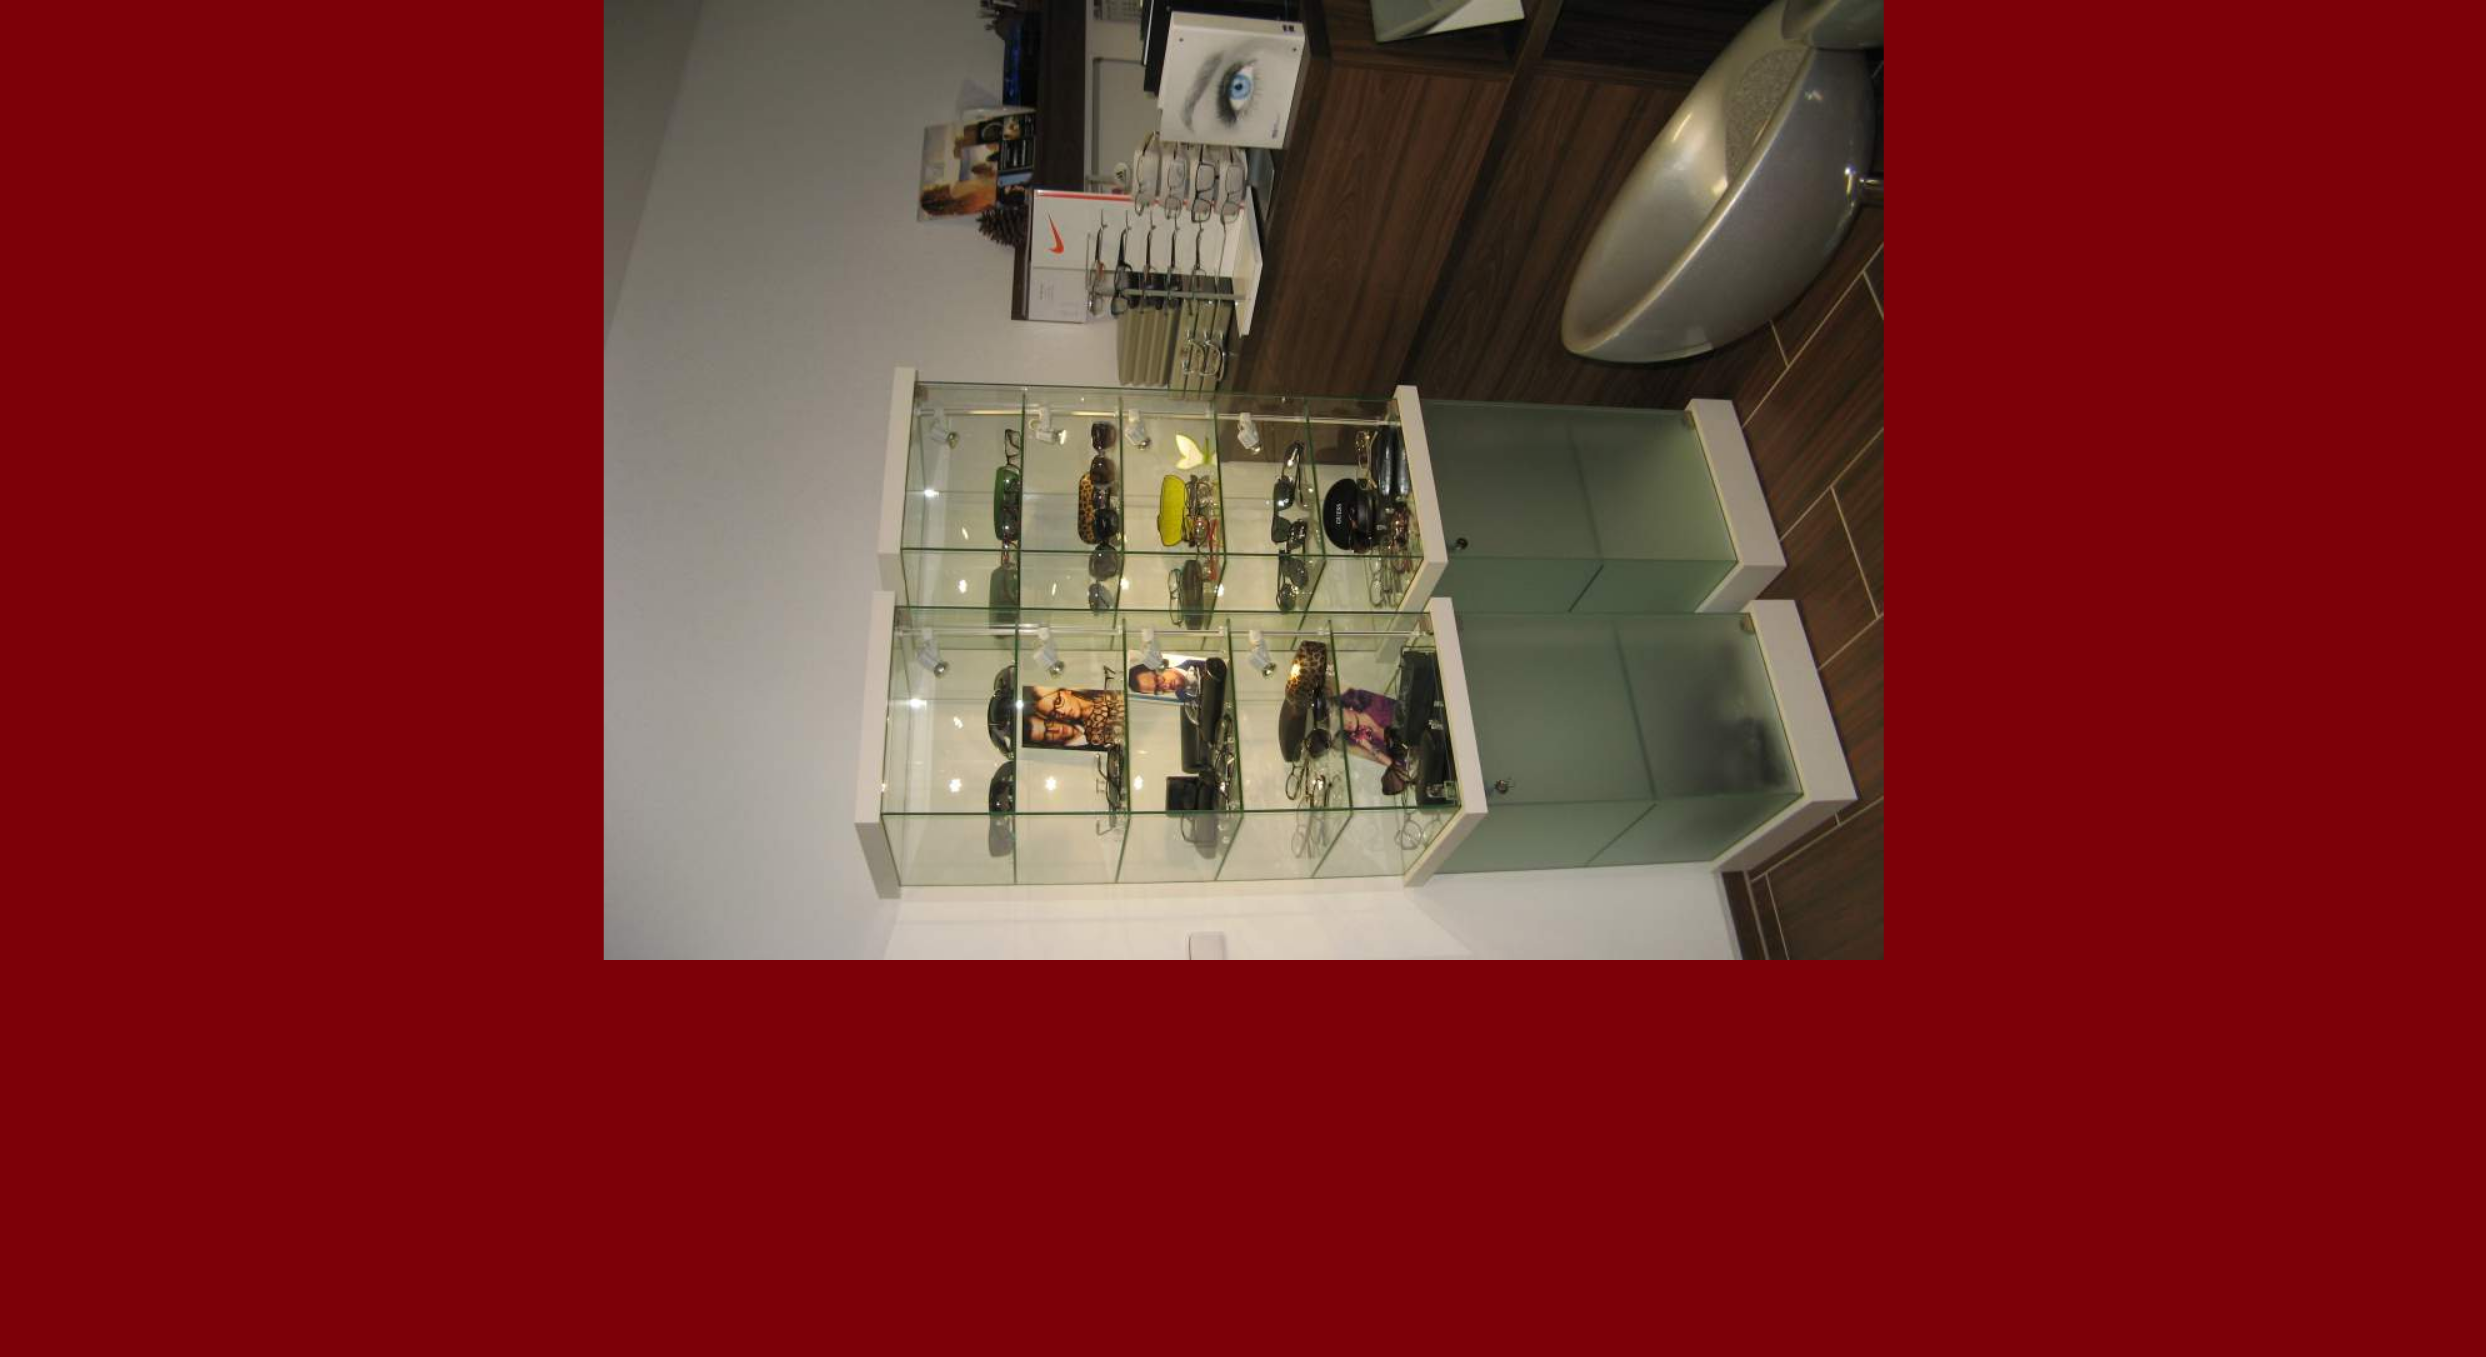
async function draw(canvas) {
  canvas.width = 2486
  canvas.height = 1357
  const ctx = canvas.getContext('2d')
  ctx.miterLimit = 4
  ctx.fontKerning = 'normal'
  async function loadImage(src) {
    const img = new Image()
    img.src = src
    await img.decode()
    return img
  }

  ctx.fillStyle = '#7d0008'
  ctx.fillRect(0, 0, 2486, 1357)
  ctx.drawImage(await loadImage('image0.png'), 603, 0, 1281, 960)
}

draw(document.querySelector('canvas'))
